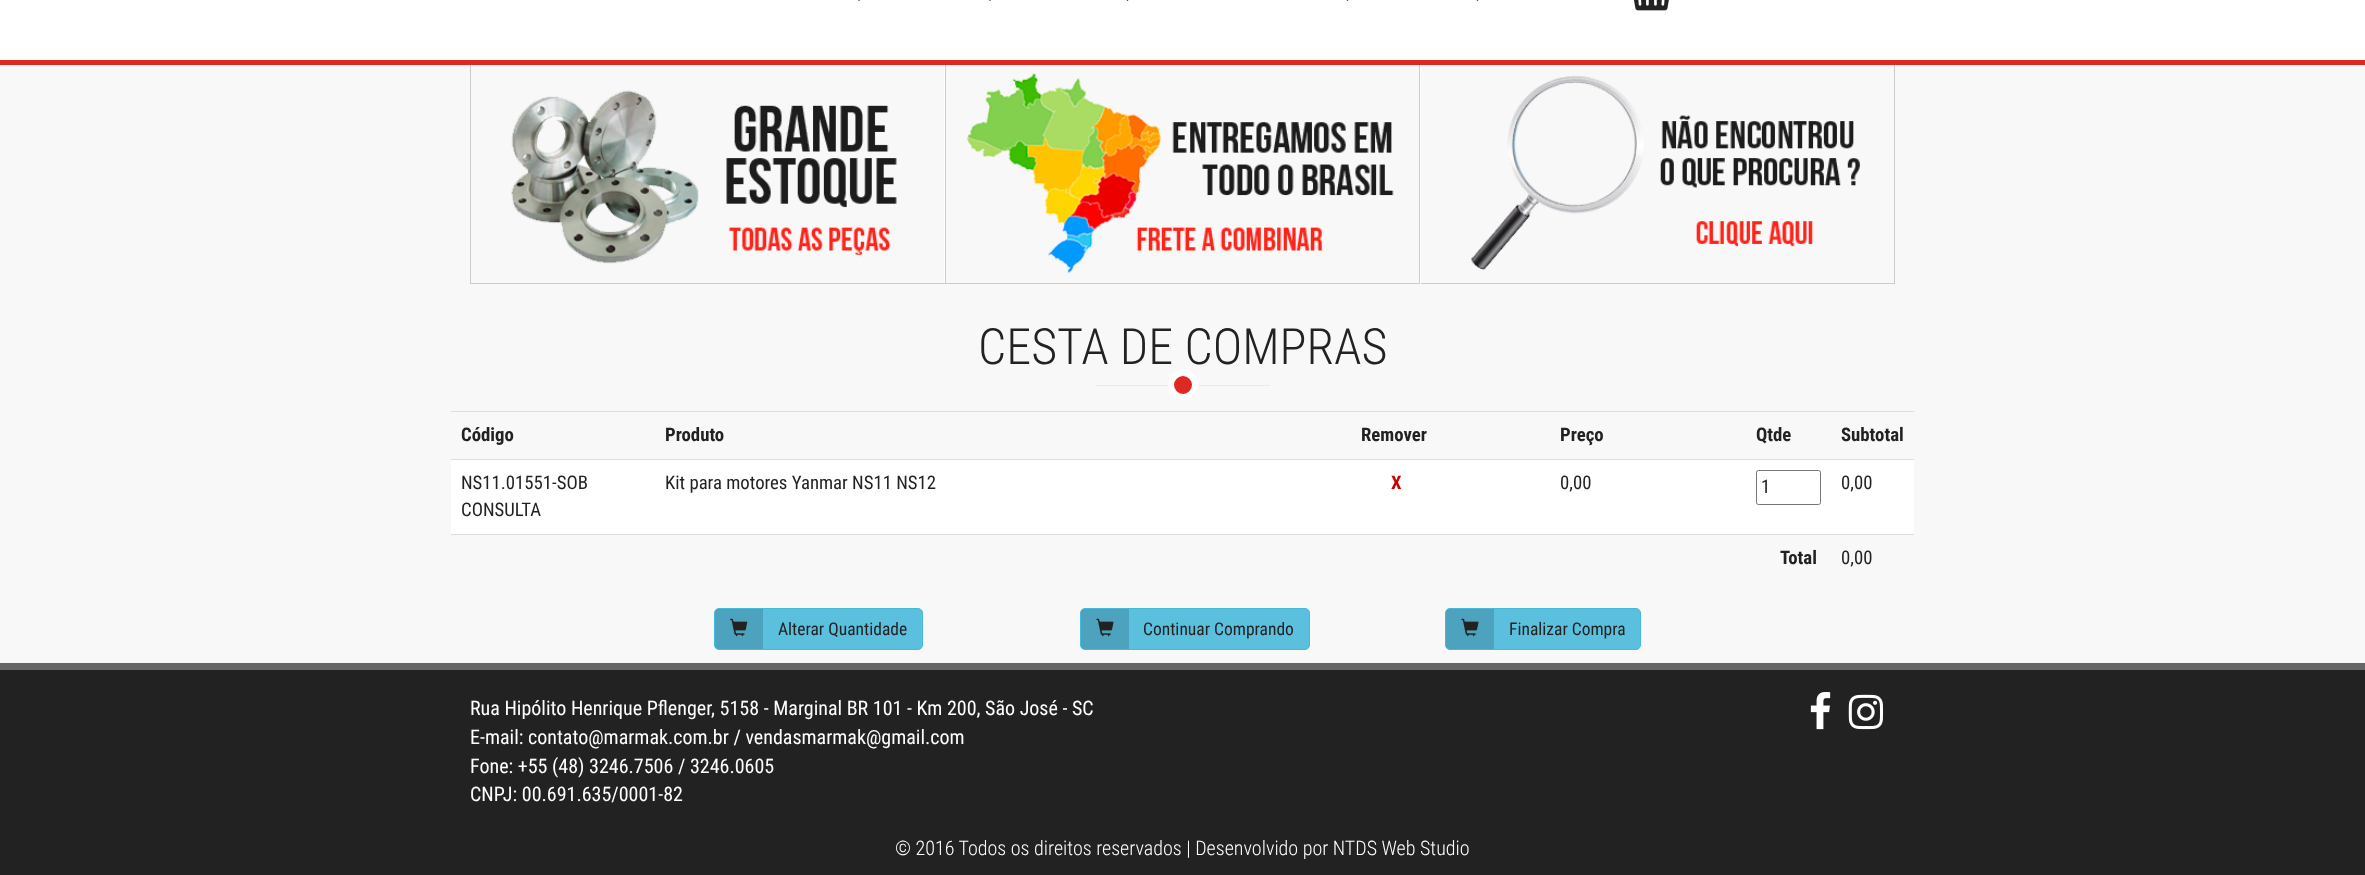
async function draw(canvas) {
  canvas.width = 2365
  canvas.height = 875
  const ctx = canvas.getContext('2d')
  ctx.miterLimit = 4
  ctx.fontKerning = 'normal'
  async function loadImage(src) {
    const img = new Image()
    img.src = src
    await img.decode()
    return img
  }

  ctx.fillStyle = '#f8f8f8'
  ctx.fillRect(0, 0, 2365, 875)
  ctx.fillStyle = '#fff'
  ctx.fillRect(0, 0, 2365, 60)
  ctx.fillStyle = '#222'
  ctx.beginPath()
  ctx.moveTo(854, -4)
  ctx.lineTo(864, -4)
  ctx.lineTo(859, 1)
  ctx.closePath()
  ctx.fill()
  ctx.beginPath()
  ctx.moveTo(985, -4)
  ctx.lineTo(995, -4)
  ctx.lineTo(990, 1)
  ctx.closePath()
  ctx.fill()
  ctx.beginPath()
  ctx.moveTo(1122.5, -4)
  ctx.lineTo(1132.5, -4)
  ctx.lineTo(1127.5, 1)
  ctx.closePath()
  ctx.fill()
  ctx.beginPath()
  ctx.moveTo(1342.5, -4)
  ctx.lineTo(1352.5, -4)
  ctx.lineTo(1347.5, 1)
  ctx.closePath()
  ctx.fill()
  ctx.beginPath()
  ctx.moveTo(1472.5, -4)
  ctx.lineTo(1482.5, -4)
  ctx.lineTo(1477.5, 1)
  ctx.closePath()
  ctx.fill()
  ctx.drawImage(await loadImage('image0.png'), 1634, 0, 35, 11)
  ctx.fillStyle = '#de2920'
  ctx.fillRect(0, 60, 2365, 5)
  ctx.fillStyle = '#fff'
  ctx.fillRect(944, 65, 1, 219)
  ctx.fillStyle = '#ccc'
  ctx.fillRect(470, 283, 475, 1)
  ctx.fillRect(470, 65, 1, 219)
  ctx.drawImage(await loadImage('image1.png'), 511, 90, 386, 174)
  ctx.fillRect(1419, 65, 1, 219)
  ctx.fillRect(945, 283, 475, 1)
  ctx.fillRect(945, 65, 1, 219)
  ctx.drawImage(await loadImage('image2.png'), 966, 73, 428, 201)
  ctx.fillRect(1894, 65, 1, 219)
  ctx.fillRect(1420, 283, 475, 1)
  ctx.fillStyle = '#fff'
  ctx.fillRect(1420, 65, 1, 219)
  ctx.drawImage(await loadImage('image3.png'), 1471, 75, 389, 196)
  ctx.font = '300 50px Roboto Condensed'
  ctx.fillStyle = '#222'
  ctx.fillText('CESTA DE COMPRAS', 978, 364)
  ctx.fillStyle = '#ebebeb'
  ctx.fillRect(1095, 385, 175, 1)
  ctx.fillStyle = '#de2920'
  ctx.beginPath()
  ctx.arc(1183, 385, 12, 0, 2 * Math.PI)
  ctx.fill()
  ctx.strokeStyle = '#fff'
  ctx.lineWidth = 6
  ctx.stroke()
  ctx.font = 'bold 18.75px Roboto Condensed'
  ctx.fillStyle = '#222'
  ctx.fillText('Código', 461, 441)
  ctx.fillText('Produto', 665, 441)
  ctx.fillText('Remover', 1361, 441)
  ctx.fillText('Preço', 1560, 441)
  ctx.fillText('Qtde', 1756, 441)
  ctx.fillStyle = '#ddd'
  ctx.fillRect(451, 411, 1463, 1)
  ctx.fillStyle = '#222'
  ctx.fillText('Subtotal', 1841, 441)
  ctx.fillStyle = '#fff'
  ctx.fillRect(451, 460, 1463, 74)
  ctx.font = '18.75px Roboto Condensed'
  ctx.fillStyle = '#222'
  ctx.fillText('NS11.01551-SOB', 461, 489)
  ctx.fillText('CONSULTA', 461, 516)
  ctx.fillText('Kit para motores Yanmar NS11 NS12', 665, 489)
  ctx.font = 'bold 18.75px Roboto Condensed'
  ctx.fillStyle = '#c00'
  ctx.fillText('X', 1391, 489)
  ctx.font = '18.75px Roboto Condensed'
  ctx.fillStyle = '#222'
  ctx.fillText('0,00', 1560, 489)
  ctx.beginPath()
  ctx.roundRect(1756.5, 470.5, 64, 34, 2)
  ctx.strokeStyle = '#767676'
  ctx.lineWidth = 1
  ctx.stroke()
  ctx.fillText('1', 1761, 493)
  ctx.fillStyle = '#ddd'
  ctx.fillRect(451, 459, 1463, 1)
  ctx.fillStyle = '#222'
  ctx.fillText('0,00', 1841, 489)
  ctx.font = 'bold 18.75px Roboto Condensed'
  ctx.fillText('Total', 1780, 564)
  ctx.fillStyle = '#ddd'
  ctx.fillRect(451, 534, 1463, 1)
  ctx.font = '18.75px Roboto Condensed'
  ctx.fillStyle = '#222'
  ctx.fillText('0,00', 1841, 564)
  ctx.fillStyle = '#5bc0de'
  ctx.beginPath()
  ctx.roundRect(714.5, 608.5, 208, 41, 4.5)
  ctx.fill()
  ctx.strokeStyle = '#46b8da'
  ctx.stroke()
  ctx.fillStyle = '#00000026'
  ctx.beginPath()
  ctx.roundRect(715, 609, 48, 40, [4, 0, 0, 4])
  ctx.fill()
  ctx.drawImage(await loadImage('image4.png'), 730, 618, 18, 19)
  ctx.font = '17.5px Roboto Condensed'
  ctx.fillStyle = '#222'
  ctx.fillText('Alterar Quantidade', 778, 635)
  ctx.fillStyle = '#5bc0de'
  ctx.beginPath()
  ctx.roundRect(1080.5, 608.5, 229, 41, 4.5)
  ctx.fill()
  ctx.stroke()
  ctx.fillStyle = '#00000026'
  ctx.beginPath()
  ctx.roundRect(1081, 609, 48, 40, [4, 0, 0, 4])
  ctx.fill()
  ctx.drawImage(await loadImage('image5.png'), 1096, 618, 18, 19)
  ctx.fillStyle = '#222'
  ctx.fillText('Continuar Comprando', 1143, 635)
  ctx.fillStyle = '#5bc0de'
  ctx.beginPath()
  ctx.roundRect(1445.5, 608.5, 195, 41, 4.5)
  ctx.fill()
  ctx.stroke()
  ctx.fillStyle = '#00000026'
  ctx.beginPath()
  ctx.roundRect(1446, 609, 48, 40, [4, 0, 0, 4])
  ctx.fill()
  ctx.drawImage(await loadImage('image5.png'), 1461, 618, 18, 19)
  ctx.fillStyle = '#222'
  ctx.fillText('Finalizar Compra', 1509, 635)
  ctx.fillRect(0, 670, 2365, 205)
  ctx.fillStyle = '#666'
  ctx.fillRect(0, 663, 2365, 7)
  ctx.font = '20px Roboto Condensed'
  ctx.fillStyle = '#fff'
  ctx.fillText('Rua Hipólito Henrique Pflenger, 5158 - Marginal BR 101 - Km 200, São José - SC', 470, 715)
  ctx.fillText('E-mail: contato@marmak.com.br / vendasmarmak@gmail.com', 470, 744)
  ctx.fillText('Fone: +55 (48) 3246.7506 / 3246.0605', 470, 773)
  ctx.fillText('CNPJ: 00.691.635/0001-82', 470, 801)
  ctx.drawImage(await loadImage('image6.png'), 1810, 692, 21, 38)
  ctx.drawImage(await loadImage('image7.png'), 1848, 694, 36, 36)
  ctx.font = '300 20px Roboto Condensed'
  ctx.fillText('© 2016 Todos os direitos reservados | Desenvolvido por NTDS Web Studio', 895, 855)
}

draw(document.querySelector('canvas'))
